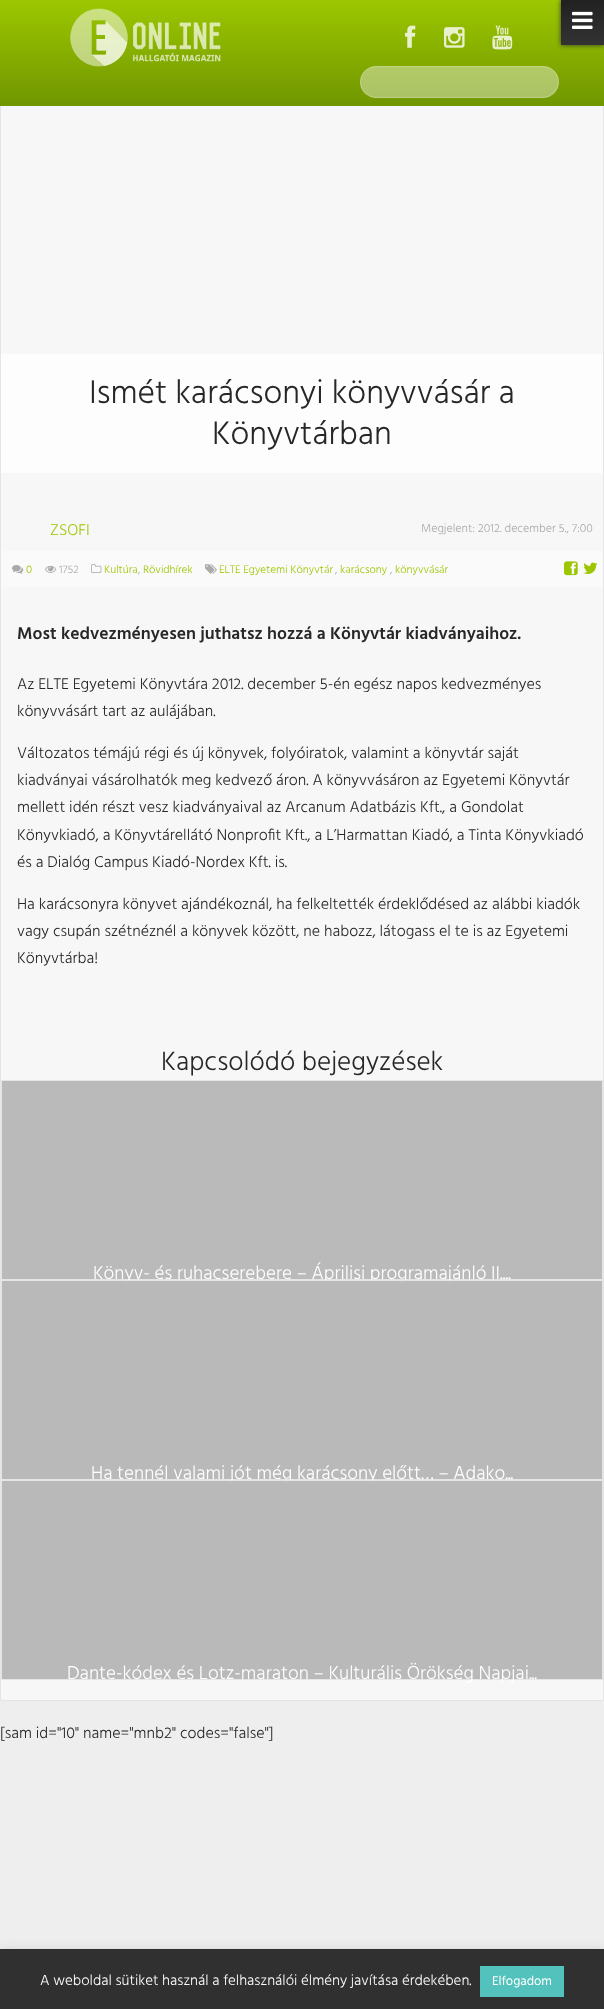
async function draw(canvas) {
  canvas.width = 604
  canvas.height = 2009
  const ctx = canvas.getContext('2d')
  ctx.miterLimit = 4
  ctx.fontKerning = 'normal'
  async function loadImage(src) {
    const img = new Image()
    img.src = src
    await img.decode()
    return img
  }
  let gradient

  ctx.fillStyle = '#eee'
  ctx.fillRect(0, 0, 604, 2009)
  gradient = ctx.createLinearGradient(302, 0, 302, 106)
  gradient.addColorStop(0, '#9cc700')
  gradient.addColorStop(1, '#709600')
  ctx.fillStyle = gradient
  ctx.fillRect(0, 0, 604, 106)
  ctx.drawImage(await loadImage('image0.png'), 70, 8, 151, 59)
  ctx.drawImage(await loadImage('image1.png'), 405, 25, 11, 23)
  ctx.drawImage(await loadImage('image2.png'), 444, 27, 21, 21)
  ctx.drawImage(await loadImage('image3.png'), 492, 25, 21, 25)
  ctx.fillStyle = '#ffffff66'
  ctx.beginPath()
  ctx.roundRect(360, 66, 199, 32, 16)
  ctx.fill()
  ctx.beginPath()
  ctx.roundRect(360.5, 66.5, 198, 31, 15.5)
  ctx.strokeStyle = '#ffffff33'
  ctx.stroke()
  ctx.fillStyle = '#333'
  ctx.filter = 'blur(2.5px)'
  ctx.beginPath()
  ctx.rect(561, 0, 43, 45)
  ctx.fill()
  ctx.filter = 'none'
  gradient = ctx.createLinearGradient(583, 0, 583, 45)
  gradient.addColorStop(0, '#212121')
  gradient.addColorStop(1, '#333')
  ctx.fillStyle = gradient
  ctx.fillRect(561, 0, 43, 45)
  ctx.drawImage(await loadImage('image4.png'), 572, 11, 21, 18)
  ctx.fillStyle = '#f7f7f7'
  ctx.fillRect(1, 106, 602, 1594)
  ctx.fillStyle = '#e5e5e5'
  ctx.fillRect(603, 106, 1, 1595)
  ctx.fillRect(0, 1700, 604, 1)
  ctx.fillRect(0, 106, 1, 1595)
  ctx.fillStyle = '#fdfdfd'
  ctx.fillRect(1, 354, 602, 119)
  ctx.font = '300 33.6px Hind'
  ctx.fillStyle = '#272727'
  ctx.fillText('Ismét karácsonyi könyvvásár a', 89, 403)
  ctx.fillText('Könyvtárban', 212, 444)
  ctx.font = '300 16px Hind'
  ctx.fillStyle = '#9cc700'
  ctx.fillText('ZSOFI', 50, 535)
  ctx.font = '300 12px Hind'
  ctx.fillStyle = '#aaa'
  ctx.fillText('Megjelent: 2012. december 5., 7:00', 421, 532)
  ctx.fillStyle = '#fafafa'
  ctx.fillRect(1, 551, 602, 36)
  ctx.drawImage(await loadImage('image5.png'), 12, 565, 12, 9)
  ctx.font = '300 11.25px Hind'
  ctx.fillStyle = '#9cc700'
  ctx.fillText('0', 26, 573)
  ctx.drawImage(await loadImage('image6.png'), 45, 565, 12, 8)
  ctx.fillStyle = '#aaa'
  ctx.fillText('1752', 59, 573)
  ctx.drawImage(await loadImage('image7.png'), 91, 564, 11, 9)
  ctx.fillStyle = '#9cc700'
  ctx.fillText('Kultúra', 104, 573)
  ctx.fillStyle = '#aaa'
  ctx.fillText(',', 138, 573)
  ctx.fillStyle = '#9cc700'
  ctx.fillText('Rövidhírek', 143, 573)
  ctx.drawImage(await loadImage('image8.png'), 205, 564, 12, 10)
  ctx.fillText('ELTE Egyetemi Könyvtár', 219, 573)
  ctx.fillStyle = '#aaa'
  ctx.fillText(',', 335, 573)
  ctx.fillStyle = '#9cc700'
  ctx.fillText('karácsony', 340, 573)
  ctx.fillStyle = '#aaa'
  ctx.fillText(',', 390, 573)
  ctx.fillStyle = '#9cc700'
  ctx.fillText('könyvvásár', 395, 573)
  ctx.drawImage(await loadImage('image9.png'), 564, 561, 14, 15)
  ctx.drawImage(await loadImage('image10.png'), 583, 562, 15, 12)
  ctx.font = '600 17.6px Hind'
  ctx.fillStyle = '#272727'
  ctx.fillText('Most kedvezményesen juthatsz hozzá a Könyvtár kiadványaihoz.', 17, 639)
  ctx.font = '300 16px Hind'
  ctx.fillText('Az ELTE Egyetemi Könyvtára 2012. december 5-én egész napos kedvezményes', 17, 689)
  ctx.fillText('könyvvásárt tart az aulájában.', 17, 716)
  ctx.fillText('Változatos témájú régi és új könyvek, folyóiratok, valamint a könyvtár saját', 17, 758)
  ctx.fillText('kiadványai vásárolhatók meg kedvező áron. A könyvvásáron az Egyetemi Könyvtár', 17, 785)
  ctx.fillText('mellett idén részt vesz kiadványaival az Arcanum Adatbázis Kft., a Gondolat', 17, 812)
  ctx.fillText('Könyvkiadó, a Könyvtárellátó Nonprofit Kft., a L’Harmattan Kiadó, a Tinta Könyvkiadó', 17, 840)
  ctx.fillText('és a Dialóg Campus Kiadó-Nordex Kft. is.', 17, 867)
  ctx.fillText('Ha karácsonyra könyvet ajándékoznál, ha felkeltették érdeklődésed az alábbi kiadók', 17, 909)
  ctx.fillText('vagy csupán szétnéznél a könyvek között, ne habozz, látogass el te is az Egyetemi', 17, 936)
  ctx.fillText('Könyvtárba!', 17, 963)
  ctx.font = '300 27.25px Hind'
  ctx.fillText('Kapcsolódó bejegyzések', 161, 1070)
  ctx.strokeStyle = '#e5e5e5'
  ctx.strokeRect(1.5, 1080.5, 601, 199)
  ctx.fillStyle = '#bababa'
  ctx.fillRect(2, 1081, 600, 198)
  ctx.font = '300 19.2px Hind'
  ctx.fillStyle = '#fff'
  ctx.fillText('Könyv- és ruhacserebere – Áprilisi programajánló II....', 93, 1279)
  ctx.strokeRect(1.5, 1280.5, 601, 199)
  ctx.fillStyle = '#00000040'
  ctx.fillRect(2, 1281, 600, 198)
  ctx.fillStyle = '#fff'
  ctx.fillText('Ha tennél valami jót még karácsony előtt… – Adako...', 91, 1479)
  ctx.strokeRect(1.5, 1480.5, 601, 199)
  ctx.fillStyle = '#00000040'
  ctx.fillRect(2, 1481, 600, 198)
  ctx.fillStyle = '#fff'
  ctx.fillText('Dante-kódex és Lotz-maraton – Kulturális Örökség Napjai...', 67, 1679)
  ctx.font = '300 16px Hind'
  ctx.fillStyle = '#272727'
  ctx.fillText('[sam id="10" name="mnb2" codes="false"]', 0, 1738)
  ctx.fillStyle = '#acabab4d'
  ctx.filter = 'blur(5px)'
  ctx.beginPath()
  ctx.rect(0, 1948, 604, 60)
  ctx.fill()
  ctx.filter = 'none'
  ctx.fillStyle = '#303030'
  ctx.fillRect(0, 1949, 604, 60)
  ctx.font = '300 15px Hind'
  ctx.fillStyle = '#fff'
  ctx.fillText('A weboldal sütiket használ a felhasználói élmény javítása érdekében.', 40, 1985)
  ctx.fillStyle = '#53c2bc'
  ctx.fillRect(480, 1966, 84, 31)
  ctx.font = '13px Hind'
  ctx.fillStyle = '#fff'
  ctx.fillText('Elfogadom', 492, 1985)
}

draw(document.querySelector('canvas'))
